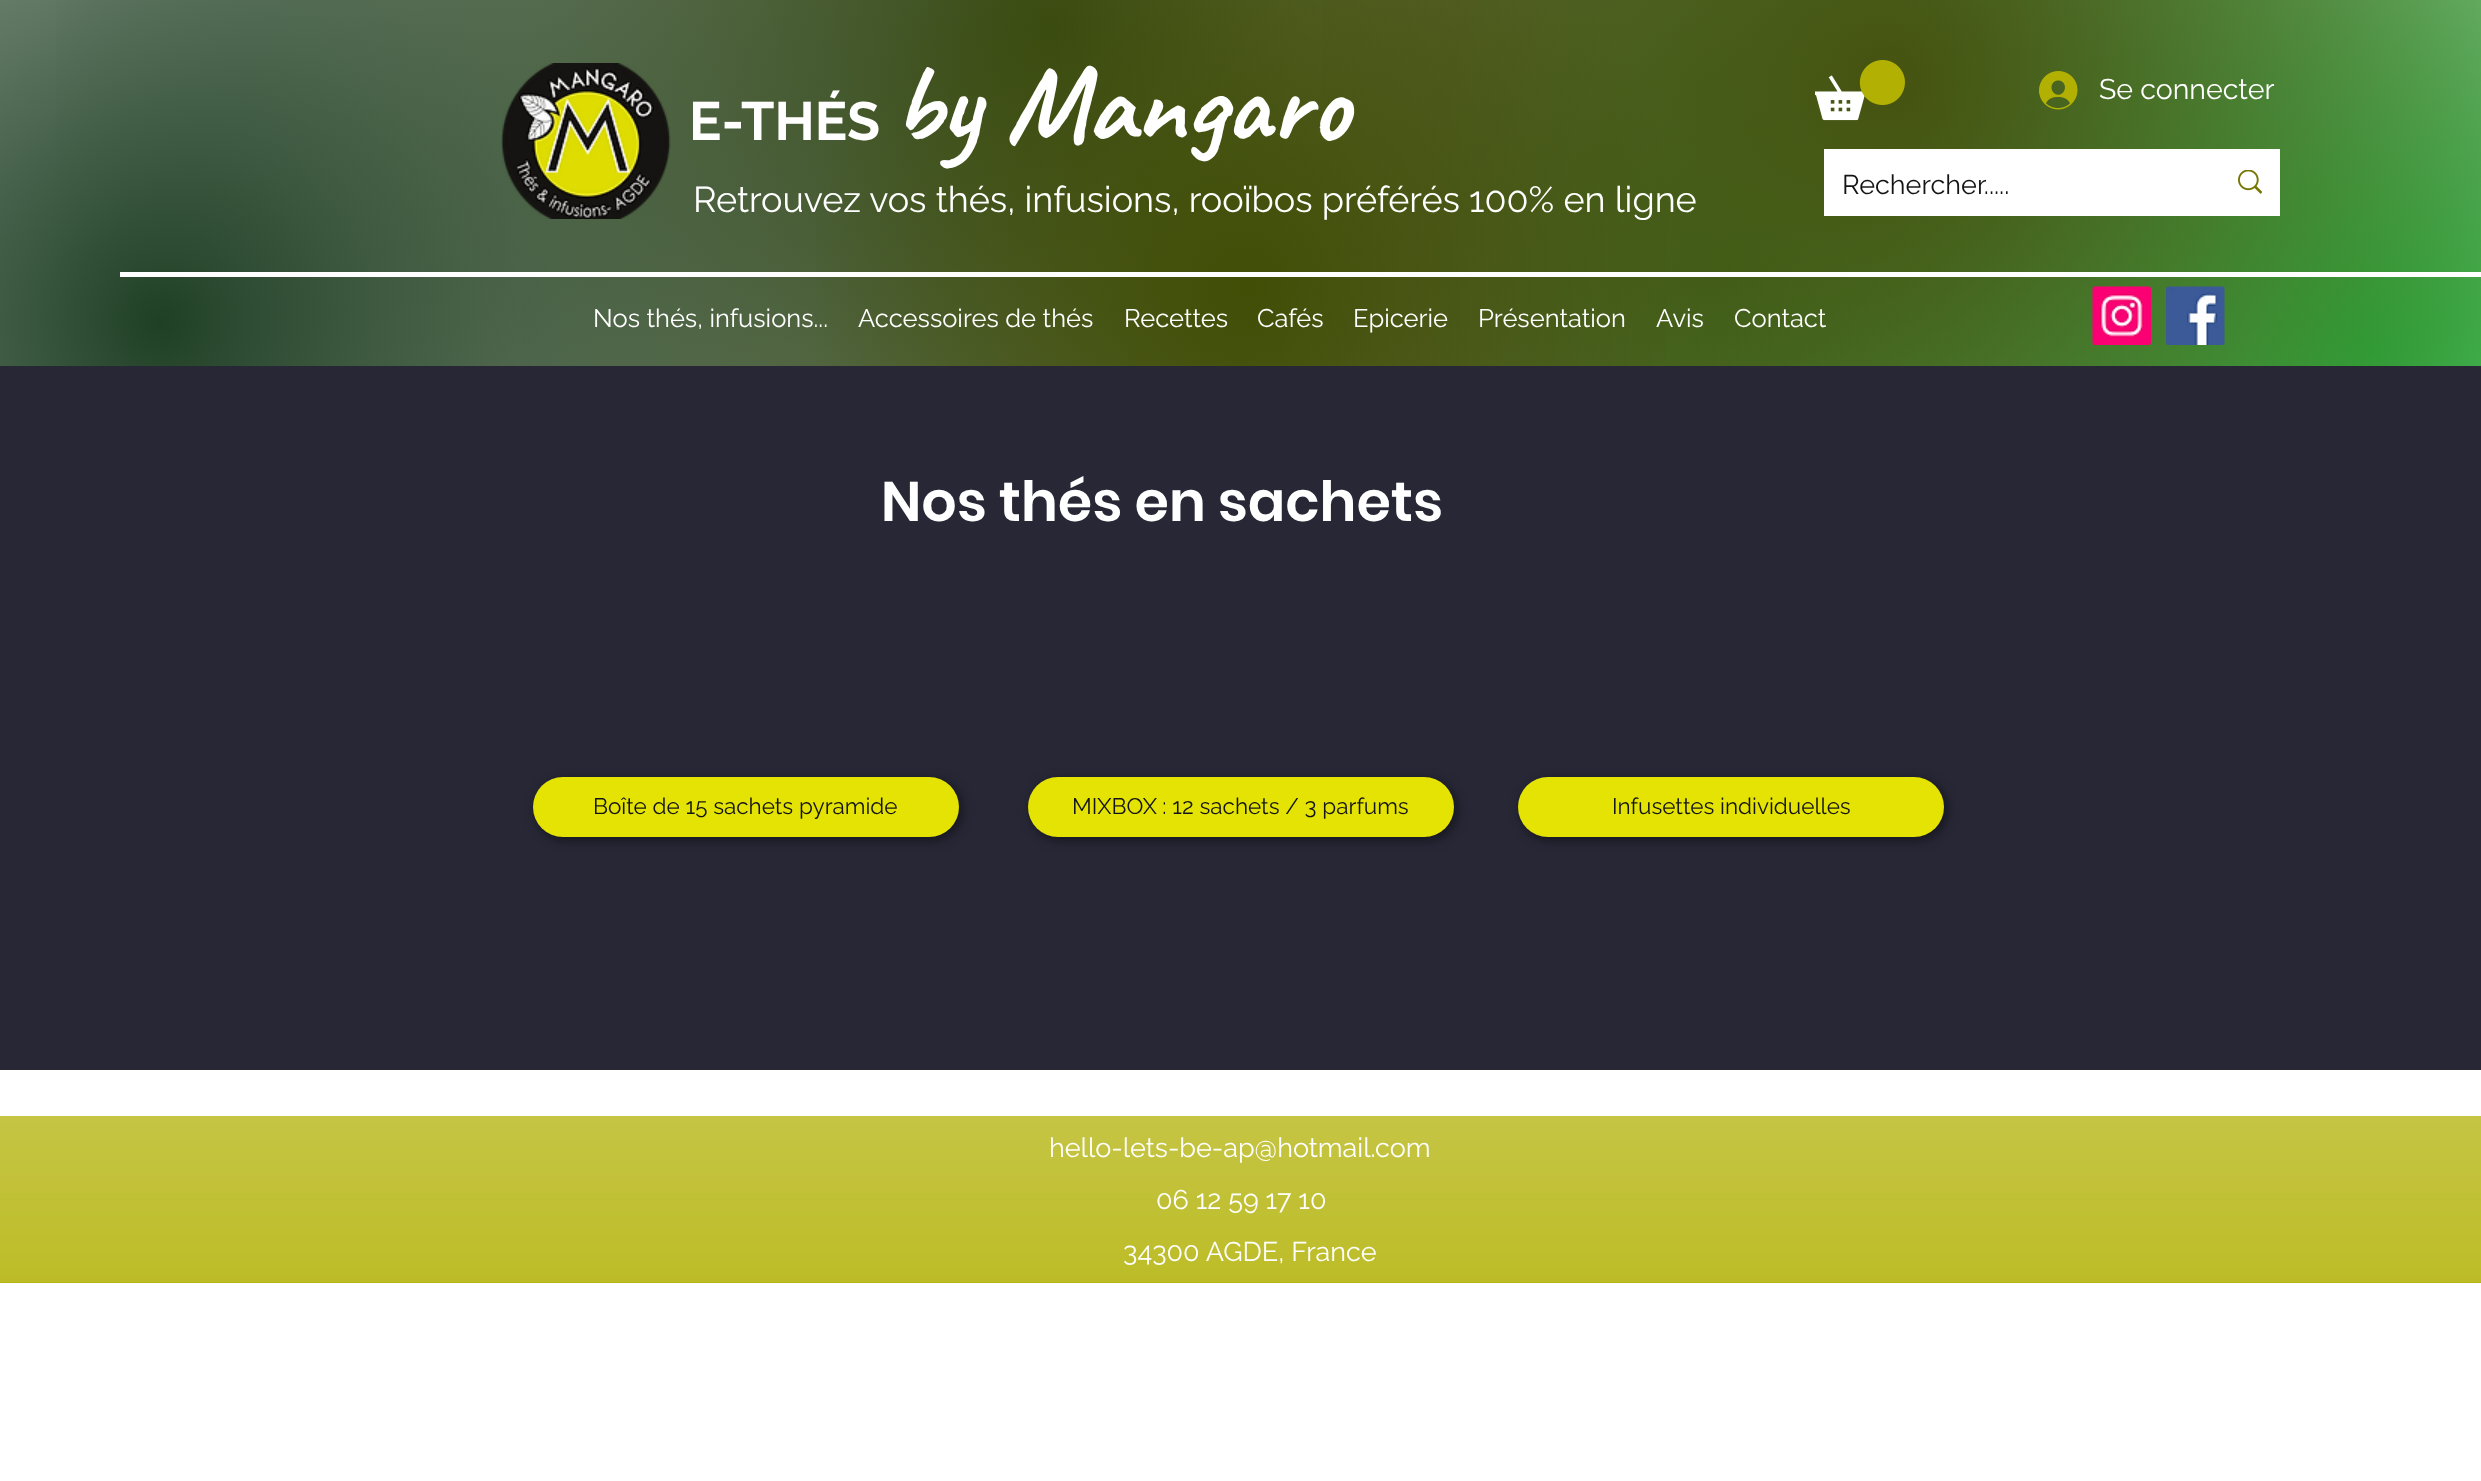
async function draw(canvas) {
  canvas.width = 2481
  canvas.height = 1481
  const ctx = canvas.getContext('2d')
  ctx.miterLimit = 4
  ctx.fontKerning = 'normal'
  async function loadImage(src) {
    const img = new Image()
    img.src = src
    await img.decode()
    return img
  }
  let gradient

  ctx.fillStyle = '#fff'
  ctx.fillRect(0, 0, 2481, 1481)
  gradient = ctx.createRadialGradient(1721, 277, 0, 1721, 277, 1743)
  gradient.addColorStop(0, '#455318')
  gradient.addColorStop(0.7, '#fff')
  ctx.fillStyle = gradient
  ctx.fillRect(522, 0, 1959, 366)
  gradient = ctx.createRadialGradient(1052, 29, 0, 1052, 29, 1469)
  gradient.addColorStop(0, '#404e10')
  gradient.addColorStop(0.7, '#404e1000')
  ctx.fillStyle = gradient
  ctx.fillRect(56, 0, 1989, 366)
  gradient = ctx.createRadialGradient(161, 322, 0, 161, 322, 2342)
  gradient.addColorStop(0, '#1d3e23fc')
  gradient.addColorStop(0.5, '#1d3e2300')
  ctx.fillStyle = gradient
  ctx.fillRect(0, 0, 1287, 366)
  gradient = ctx.createRadialGradient(2364, 345, 0, 2364, 345, 2389)
  gradient.addColorStop(0, '#2da93c')
  gradient.addColorStop(0.4, '#2da93c00')
  ctx.fillStyle = gradient
  ctx.fillRect(1432, 0, 1049, 366)
  gradient = ctx.createRadialGradient(1247, 290, 0, 1247, 290, 1280)
  gradient.addColorStop(0, '#414e06')
  gradient.addColorStop(0.35, '#414e0600')
  ctx.fillStyle = gradient
  ctx.fillRect(816, 0, 850, 366)
  gradient = ctx.createRadialGradient(1890, 81, 0, 1890, 81, 1911)
  gradient.addColorStop(0, '#465210')
  gradient.addColorStop(0.35, '#46521000')
  ctx.fillStyle = gradient
  ctx.fillRect(1322, 0, 1159, 366)
  ctx.drawImage(await loadImage('image0.png'), 501, 63, 170, 156)
  ctx.font = 'bold 54px Raleway'
  ctx.fillStyle = '#fff'
  ctx.fillText('E-THÉS', 689, 140)
  ctx.font = 'bold 109.5px Caveat'
  ctx.fillText('by Mangaro', 893, 140)
  ctx.drawImage(await loadImage('image1.png'), 1815, 60, 90, 61)
  ctx.drawImage(await loadImage('image2.png'), 2039, 71, 39, 39)
  ctx.font = '28.5px Raleway'
  ctx.fillText('Se connecter', 2099, 99)
  ctx.font = '36px Raleway'
  ctx.fillText('Retrouvez vos thés, infusions, rooïbos préférés 100% en ligne', 693, 212)
  ctx.fillRect(1824, 149, 456, 67)
  ctx.font = '27px Raleway'
  ctx.fillStyle = '#141414'
  ctx.fillText('Rechercher.....', 1842, 194)
  ctx.drawImage(await loadImage('image3.png'), 2238, 170, 24, 24)
  ctx.fillStyle = '#fff'
  ctx.fillRect(120, 272, 2361, 5)
  ctx.font = '25.5px Raleway'
  ctx.fillText('Nos thés, infusions...', 593, 327)
  ctx.fillText('Accessoires de thés', 858, 327)
  ctx.fillText('Recettes', 1124, 327)
  ctx.fillText('Cafés', 1257, 327)
  ctx.fillText('Epicerie', 1353, 327)
  ctx.fillText('Présentation', 1478, 327)
  ctx.fillText('Avis', 1656, 327)
  ctx.fillText('Contact', 1734, 327)
  ctx.drawImage(await loadImage('image4.png'), 2092, 286, 59, 59)
  ctx.drawImage(await loadImage('image5.png'), 2166, 286, 59, 59)
  ctx.fillStyle = '#272736'
  ctx.fillRect(0, 366, 2481, 704)
  ctx.font = '600 55.5px Poppins'
  ctx.fillStyle = '#fff'
  ctx.fillText('Nos thés en sachets', 881, 521)
  ctx.fillStyle = '#00000073'
  ctx.filter = 'blur(6px)'
  ctx.beginPath()
  ctx.roundRect(536, 780, 426, 60, 30)
  ctx.fill()
  ctx.filter = 'none'
  ctx.fillStyle = '#e4e304'
  ctx.beginPath()
  ctx.roundRect(533, 777, 426, 60, 30)
  ctx.fill()
  ctx.font = '22.5px Raleway'
  ctx.fillStyle = '#141414'
  ctx.fillText('Boîte de 15 sachets pyramide', 593, 814)
  ctx.fillStyle = '#00000073'
  ctx.filter = 'blur(6px)'
  ctx.beginPath()
  ctx.roundRect(1031, 780, 426, 60, 30)
  ctx.fill()
  ctx.filter = 'none'
  ctx.fillStyle = '#e4e304'
  ctx.beginPath()
  ctx.roundRect(1028, 777, 426, 60, 30)
  ctx.fill()
  ctx.fillStyle = '#141414'
  ctx.fillText('MIXBOX : 12 sachets / 3 parfums', 1072, 814)
  ctx.fillStyle = '#00000073'
  ctx.filter = 'blur(6px)'
  ctx.beginPath()
  ctx.roundRect(1521, 780, 426, 60, 30)
  ctx.fill()
  ctx.filter = 'none'
  ctx.fillStyle = '#e4e304'
  ctx.beginPath()
  ctx.roundRect(1518, 777, 426, 60, 30)
  ctx.fill()
  ctx.fillStyle = '#141414'
  ctx.fillText('Infusettes individuelles', 1612, 814)
  ctx.fillStyle = '#b2b103'
  ctx.fillRect(0, 1116, 2481, 167)
  ctx.drawImage(await loadImage('image6.png'), 0, 1116, 2481, 167)
  ctx.font = '27px Raleway'
  ctx.fillStyle = '#fff'
  ctx.fillText('hello-lets-be-ap@hotmail.com', 1049, 1157)
  ctx.fillText('06 12 59 17 10', 1156, 1209)
  ctx.fillText('34300 AGDE, France', 1123, 1261)
}

draw(document.querySelector('canvas'))
